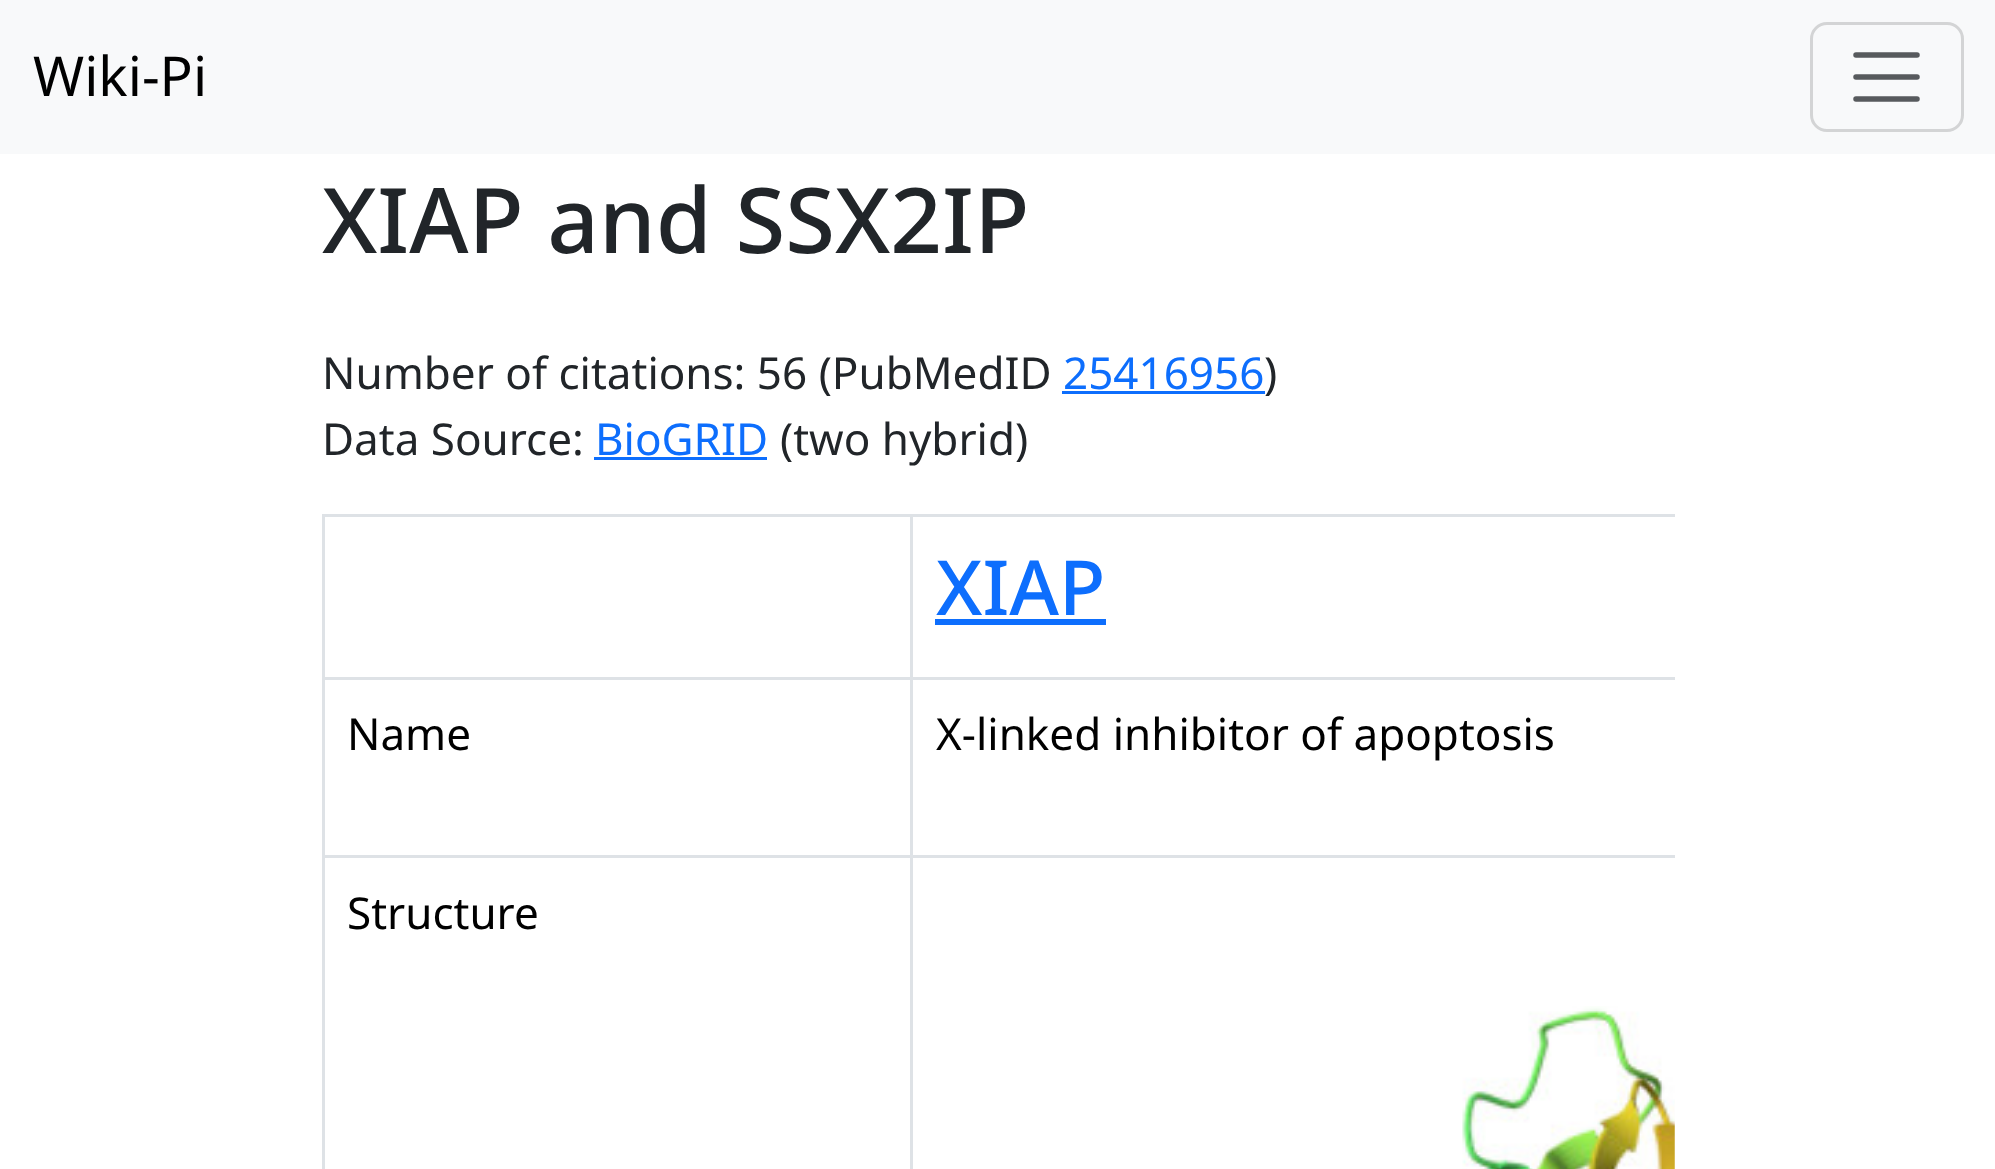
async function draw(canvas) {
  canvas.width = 1995
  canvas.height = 1169
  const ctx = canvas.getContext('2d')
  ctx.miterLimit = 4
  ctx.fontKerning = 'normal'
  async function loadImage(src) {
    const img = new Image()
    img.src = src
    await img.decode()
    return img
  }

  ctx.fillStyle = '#fff'
  ctx.fillRect(0, 0, 1995, 1169)
  ctx.fillStyle = '#f8f9fa'
  ctx.fillRect(0, 0, 1995, 154)
  ctx.font = '55px Noto Sans'
  ctx.fillStyle = '#000'
  ctx.fillText('Wiki-Pi', 33, 96)
  ctx.beginPath()
  ctx.roundRect(1811.5, 23.5, 151, 107, 15.5)
  ctx.strokeStyle = '#d3d4d5'
  ctx.lineWidth = 3
  ctx.stroke()
  ctx.beginPath()
  ctx.moveTo(1856, 55)
  ctx.lineTo(1917, 55)
  ctx.moveTo(1856, 77)
  ctx.lineTo(1917, 77)
  ctx.moveTo(1856, 99)
  ctx.lineTo(1917, 99)
  ctx.strokeStyle = '#575a5d'
  ctx.lineWidth = 5.5
  ctx.lineCap = 'round'
  ctx.stroke()
  ctx.font = '500 90.5px Noto Sans'
  ctx.fillStyle = '#212529'
  ctx.fillText('XIAP and SSX2IP', 322, 253)
  ctx.font = '44px Noto Sans'
  ctx.fillText('Number of citations: 56 (PubMedID', 322, 389)
  ctx.fillStyle = '#0d6efd'
  ctx.fillText('25416956', 1063, 389)
  ctx.fillStyle = '#212529'
  ctx.fillText(')', 1264, 389)
  ctx.fillStyle = '#0d6efd'
  ctx.fillRect(1062, 391, 203, 3)
  ctx.fillStyle = '#212529'
  ctx.fillText('Data Source:', 322, 455)
  ctx.fillStyle = '#0d6efd'
  ctx.fillText('BioGRID', 595, 455)
  ctx.fillRect(594, 457, 173, 3)
  ctx.fillStyle = '#212529'
  ctx.fillText('(two hybrid)', 780, 455)
  ctx.fillStyle = '#dee2e6'
  ctx.fillRect(322, 514, 1353, 3)
  ctx.font = '500 76px Noto Sans'
  ctx.fillStyle = '#0d6efd'
  ctx.fillText('XIAP', 936, 615)
  ctx.fillRect(935, 619, 171, 6)
  ctx.fillStyle = '#dee2e6'
  ctx.fillRect(322, 677, 1353, 3)
  ctx.font = '44px Noto Sans'
  ctx.fillStyle = '#000'
  ctx.fillText('Name', 347, 750)
  ctx.fillText('X-linked inhibitor of apoptosis', 936, 750)
  ctx.fillStyle = '#dee2e6'
  ctx.fillRect(322, 855, 1353, 3)
  ctx.fillRect(322, 514, 3, 655)
  ctx.fillStyle = '#000'
  ctx.fillText('Structure', 347, 929)
  ctx.fillStyle = '#dee2e6'
  ctx.fillRect(910, 514, 3, 655)
  ctx.drawImage(await loadImage('image0.png'), 1462, 1006, 213, 163)
}

draw(document.querySelector('canvas'))
